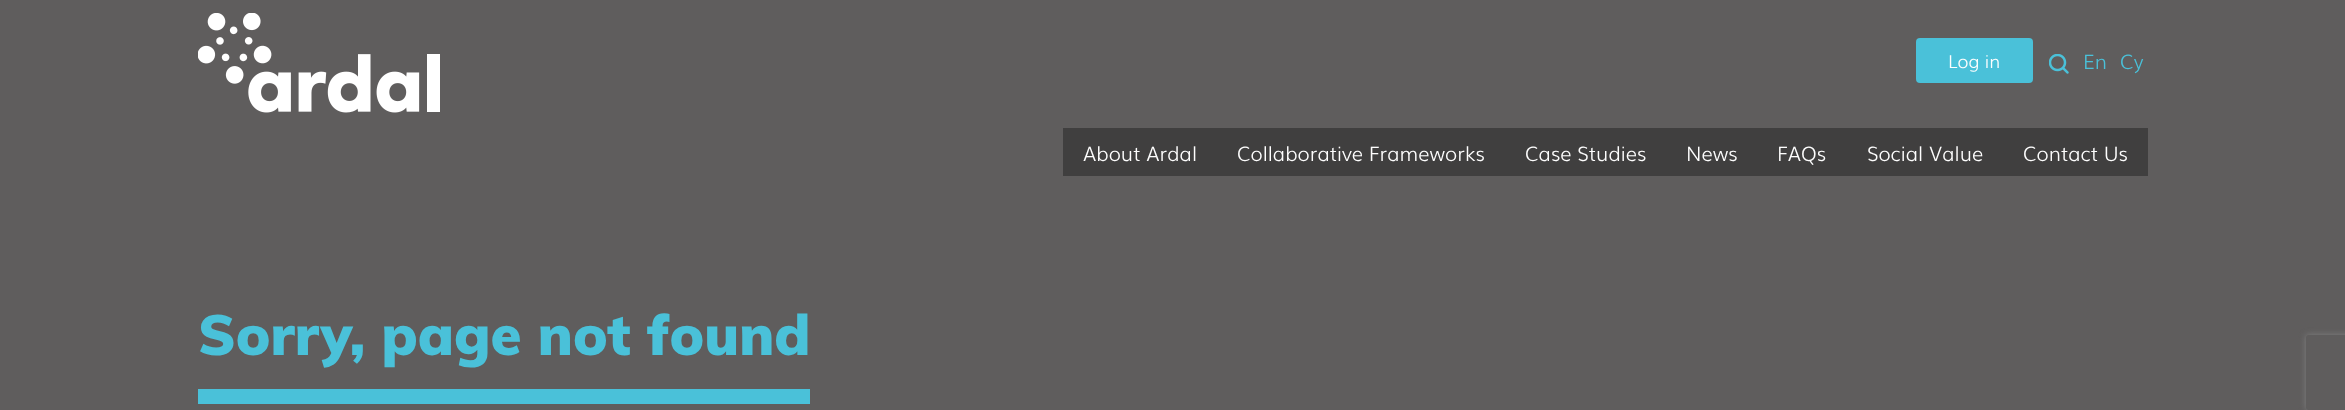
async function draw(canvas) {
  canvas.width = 2345
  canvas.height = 410
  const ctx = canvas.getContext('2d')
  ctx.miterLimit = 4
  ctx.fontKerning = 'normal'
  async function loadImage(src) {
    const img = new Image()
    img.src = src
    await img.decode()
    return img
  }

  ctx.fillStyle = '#5f5d5d'
  ctx.fillRect(0, 0, 2345, 410)
  ctx.drawImage(await loadImage('image0.png'), 198, 13, 242, 100)
  ctx.fillStyle = '#4ac1d9'
  ctx.beginPath()
  ctx.roundRect(1916, 38, 117, 45, 4)
  ctx.fill()
  ctx.font = '300 18px Muli'
  ctx.fillStyle = '#fefefe'
  ctx.fillText('Log in', 1948, 68)
  ctx.drawImage(await loadImage('image1.png'), 2049, 54, 20, 20)
  ctx.font = '300 20px Muli'
  ctx.fillStyle = '#4ac1d9'
  ctx.fillText('En', 2083, 69)
  ctx.fillText('Cy', 2120, 69)
  ctx.fillStyle = '#403f3f'
  ctx.fillRect(1063, 128, 1085, 48)
  ctx.fillStyle = '#fefefe'
  ctx.fillText('About Ardal', 1083, 161)
  ctx.fillText('Collaborative Frameworks', 1237, 161)
  ctx.fillText('Case Studies', 1525, 161)
  ctx.fillText('News', 1686, 161)
  ctx.fillText('FAQs', 1777, 161)
  ctx.fillText('Social Value', 1867, 161)
  ctx.fillText('Contact Us', 2023, 161)
  ctx.font = '900 56.25px Muli'
  ctx.fillStyle = '#4ac1d9'
  ctx.fillText('Sorry, page not found', 198, 355)
  ctx.fillRect(198, 389, 612, 15)
  ctx.save()
  ctx.beginPath()
  ctx.moveTo(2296, 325)
  ctx.lineTo(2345, 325)
  ctx.lineTo(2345, 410)
  ctx.lineTo(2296, 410)
  ctx.closePath()
  ctx.moveTo(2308.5, 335)
  ctx.lineTo(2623.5, 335)
  ctx.bezierCurveTo(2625, 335, 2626, 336, 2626, 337.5)
  ctx.lineTo(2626, 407.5)
  ctx.bezierCurveTo(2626, 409, 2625, 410, 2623.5, 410)
  ctx.lineTo(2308.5, 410)
  ctx.bezierCurveTo(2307, 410, 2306, 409, 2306, 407.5)
  ctx.lineTo(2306, 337.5)
  ctx.bezierCurveTo(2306, 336, 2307, 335, 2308.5, 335)
  ctx.closePath()
  ctx.clip('evenodd')
  ctx.fillStyle = '#808080'
  ctx.filter = 'blur(3px)'
  ctx.beginPath()
  ctx.roundRect(2306, 335, 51, 75, 2.5)
  ctx.fill()
  ctx.filter = 'none'
  ctx.restore()
}

draw(document.querySelector('canvas'))
